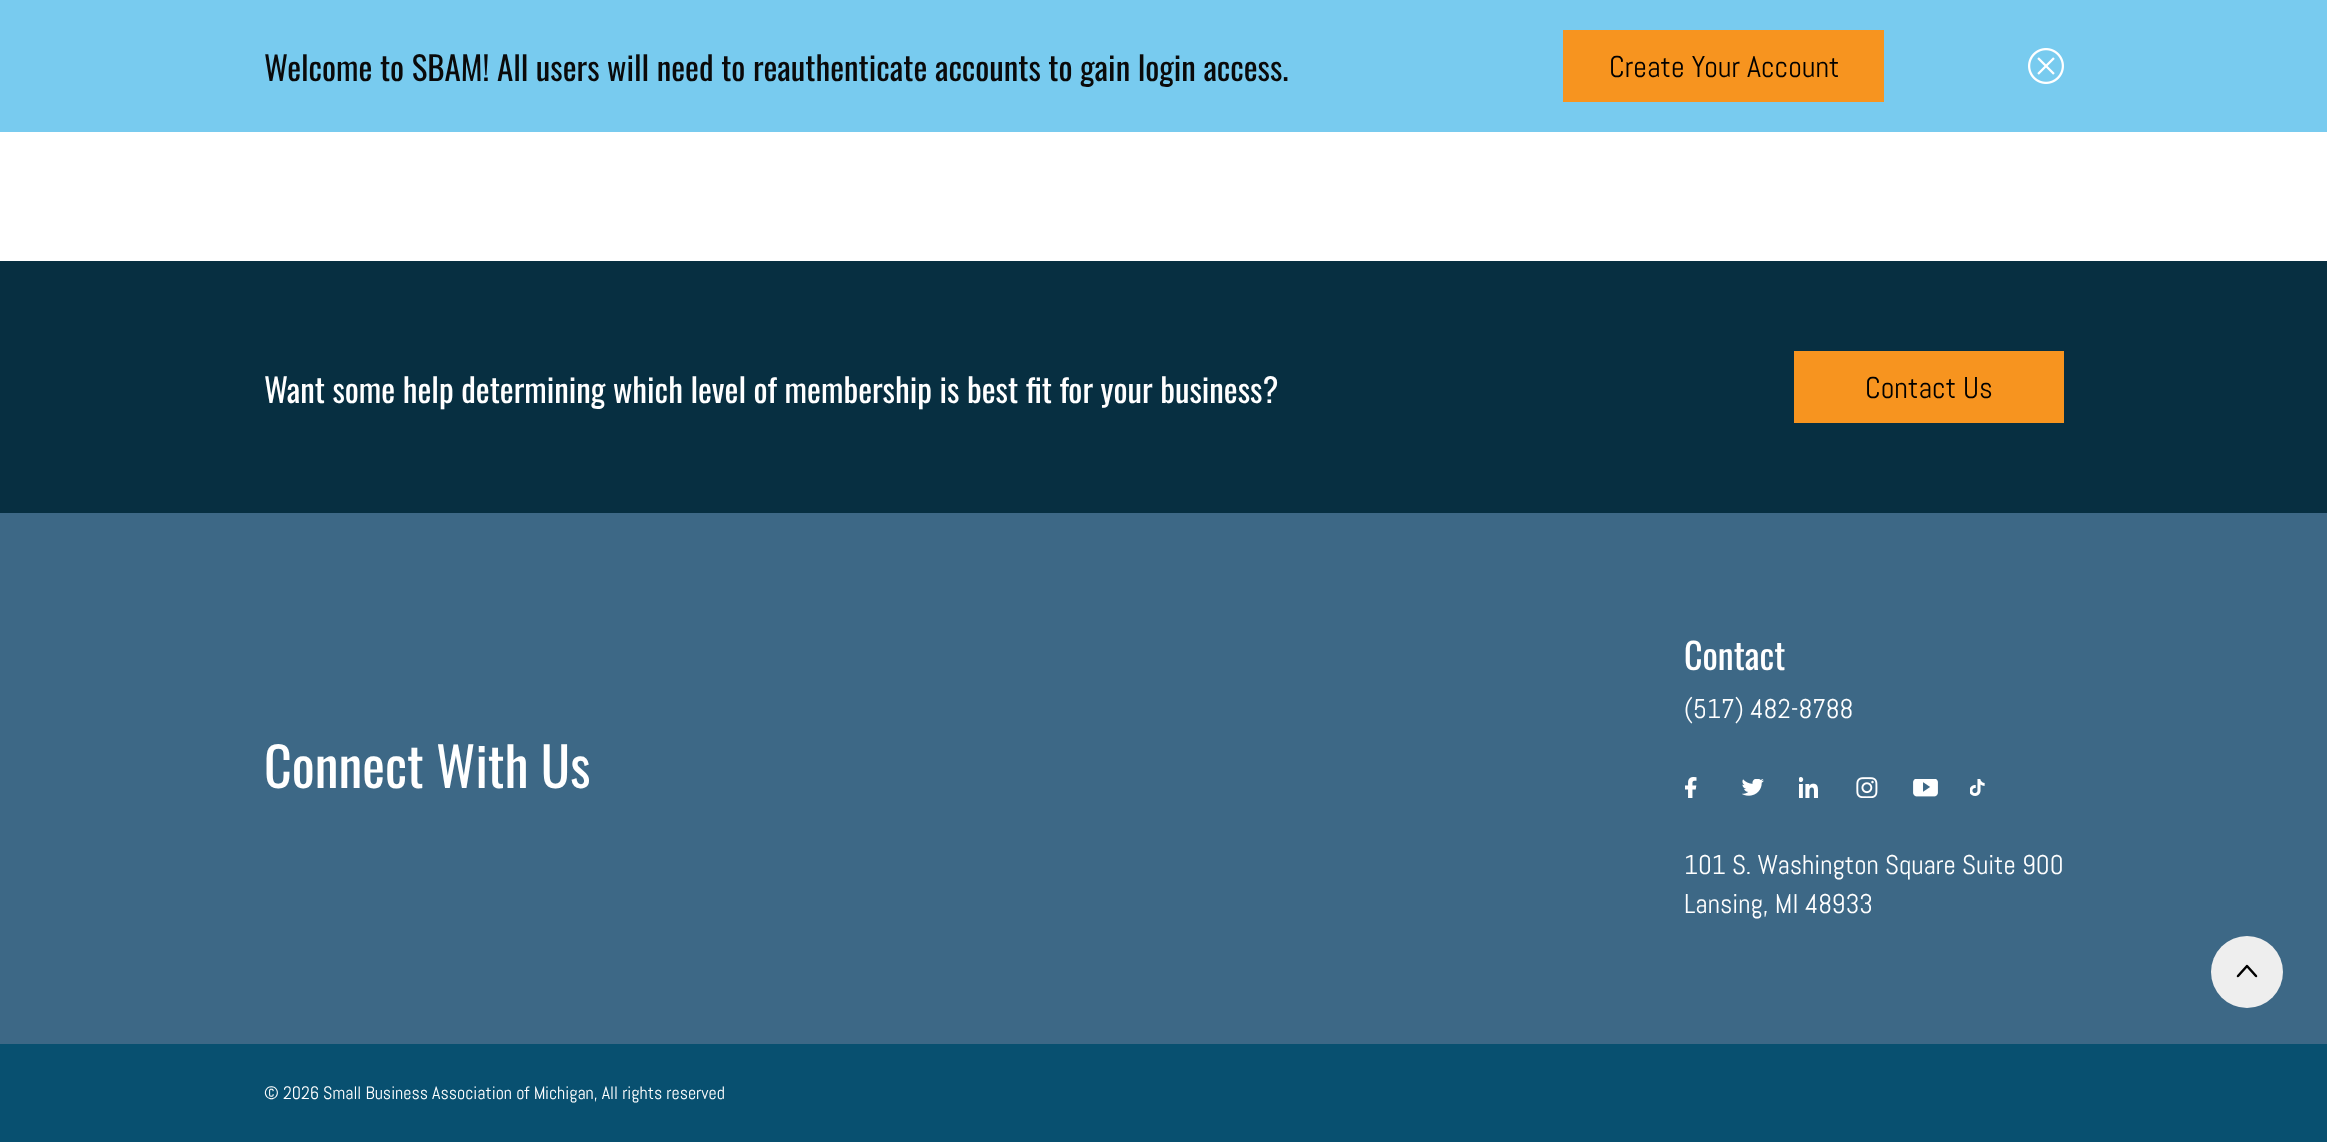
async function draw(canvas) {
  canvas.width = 2327
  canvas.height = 1142
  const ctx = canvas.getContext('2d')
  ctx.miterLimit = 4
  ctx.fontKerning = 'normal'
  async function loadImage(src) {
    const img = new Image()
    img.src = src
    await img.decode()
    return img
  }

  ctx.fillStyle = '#fff'
  ctx.fillRect(0, 0, 2327, 1142)
  ctx.fillStyle = '#78cbef'
  ctx.fillRect(0, 0, 2327, 132)
  ctx.font = '33px Oswald'
  ctx.fillStyle = '#0a0a0a'
  ctx.fillText('Welcome to SBAM! All users will need to reauthenticate accounts to gain login access.', 264, 81)
  ctx.fillStyle = '#f7941f'
  ctx.fillRect(1563, 30, 321, 72)
  ctx.font = '30px Abel'
  ctx.fillStyle = '#000'
  ctx.fillText('Create Your Account', 1609, 77)
  ctx.drawImage(await loadImage('image0.png'), 2028, 48, 36, 36)
  ctx.fillStyle = '#072f41'
  ctx.fillRect(0, 261, 2327, 252)
  ctx.font = '33px Oswald'
  ctx.fillStyle = '#fff'
  ctx.fillText('Want some help determining which level of membership is best fit for your business?', 264, 403)
  ctx.fillStyle = '#f7941f'
  ctx.fillRect(1794, 351, 270, 72)
  ctx.font = '30px Abel'
  ctx.fillStyle = '#000'
  ctx.fillText('Contact Us', 1865, 398)
  ctx.fillStyle = '#3d6886'
  ctx.fillRect(0, 513, 2327, 531)
  ctx.font = '54px Oswald'
  ctx.fillStyle = '#fff'
  ctx.fillText('Connect With Us', 264, 788)
  ctx.font = '36px Oswald'
  ctx.fillText('Contact', 1684, 670)
  ctx.font = '27px Abel'
  ctx.fillText('(517) 482-8788', 1684, 718)
  ctx.drawImage(await loadImage('image1.png'), 1685, 777, 12, 21)
  ctx.drawImage(await loadImage('image2.png'), 1742, 779, 22, 17)
  ctx.drawImage(await loadImage('image3.png'), 1799, 777, 19, 21)
  ctx.drawImage(await loadImage('image4.png'), 1856, 777, 22, 21)
  ctx.drawImage(await loadImage('image5.png'), 1913, 779, 25, 18)
  ctx.drawImage(await loadImage('image6.png'), 1970, 779, 15, 17)
  ctx.fillText('101 S. Washington Square Suite 900', 1684, 874)
  ctx.fillText('Lansing, MI 48933', 1684, 913)
  ctx.fillStyle = '#eee'
  ctx.beginPath()
  ctx.arc(2247, 972, 36, 0, 2 * Math.PI)
  ctx.fill()
  ctx.beginPath()
  ctx.moveTo(2256, 976)
  ctx.lineTo(2247, 966)
  ctx.lineTo(2238, 976)
  ctx.strokeStyle = '#000'
  ctx.lineWidth = 2.5
  ctx.lineCap = 'round'
  ctx.lineJoin = 'round'
  ctx.stroke()
  ctx.fillStyle = '#085070'
  ctx.fillRect(0, 1044, 2327, 98)
  ctx.font = '18px Abel'
  ctx.fillStyle = '#fff'
  ctx.fillText('© 2026 Small Business Association of Michigan, All rights reserved', 264, 1099)
}

draw(document.querySelector('canvas'))
